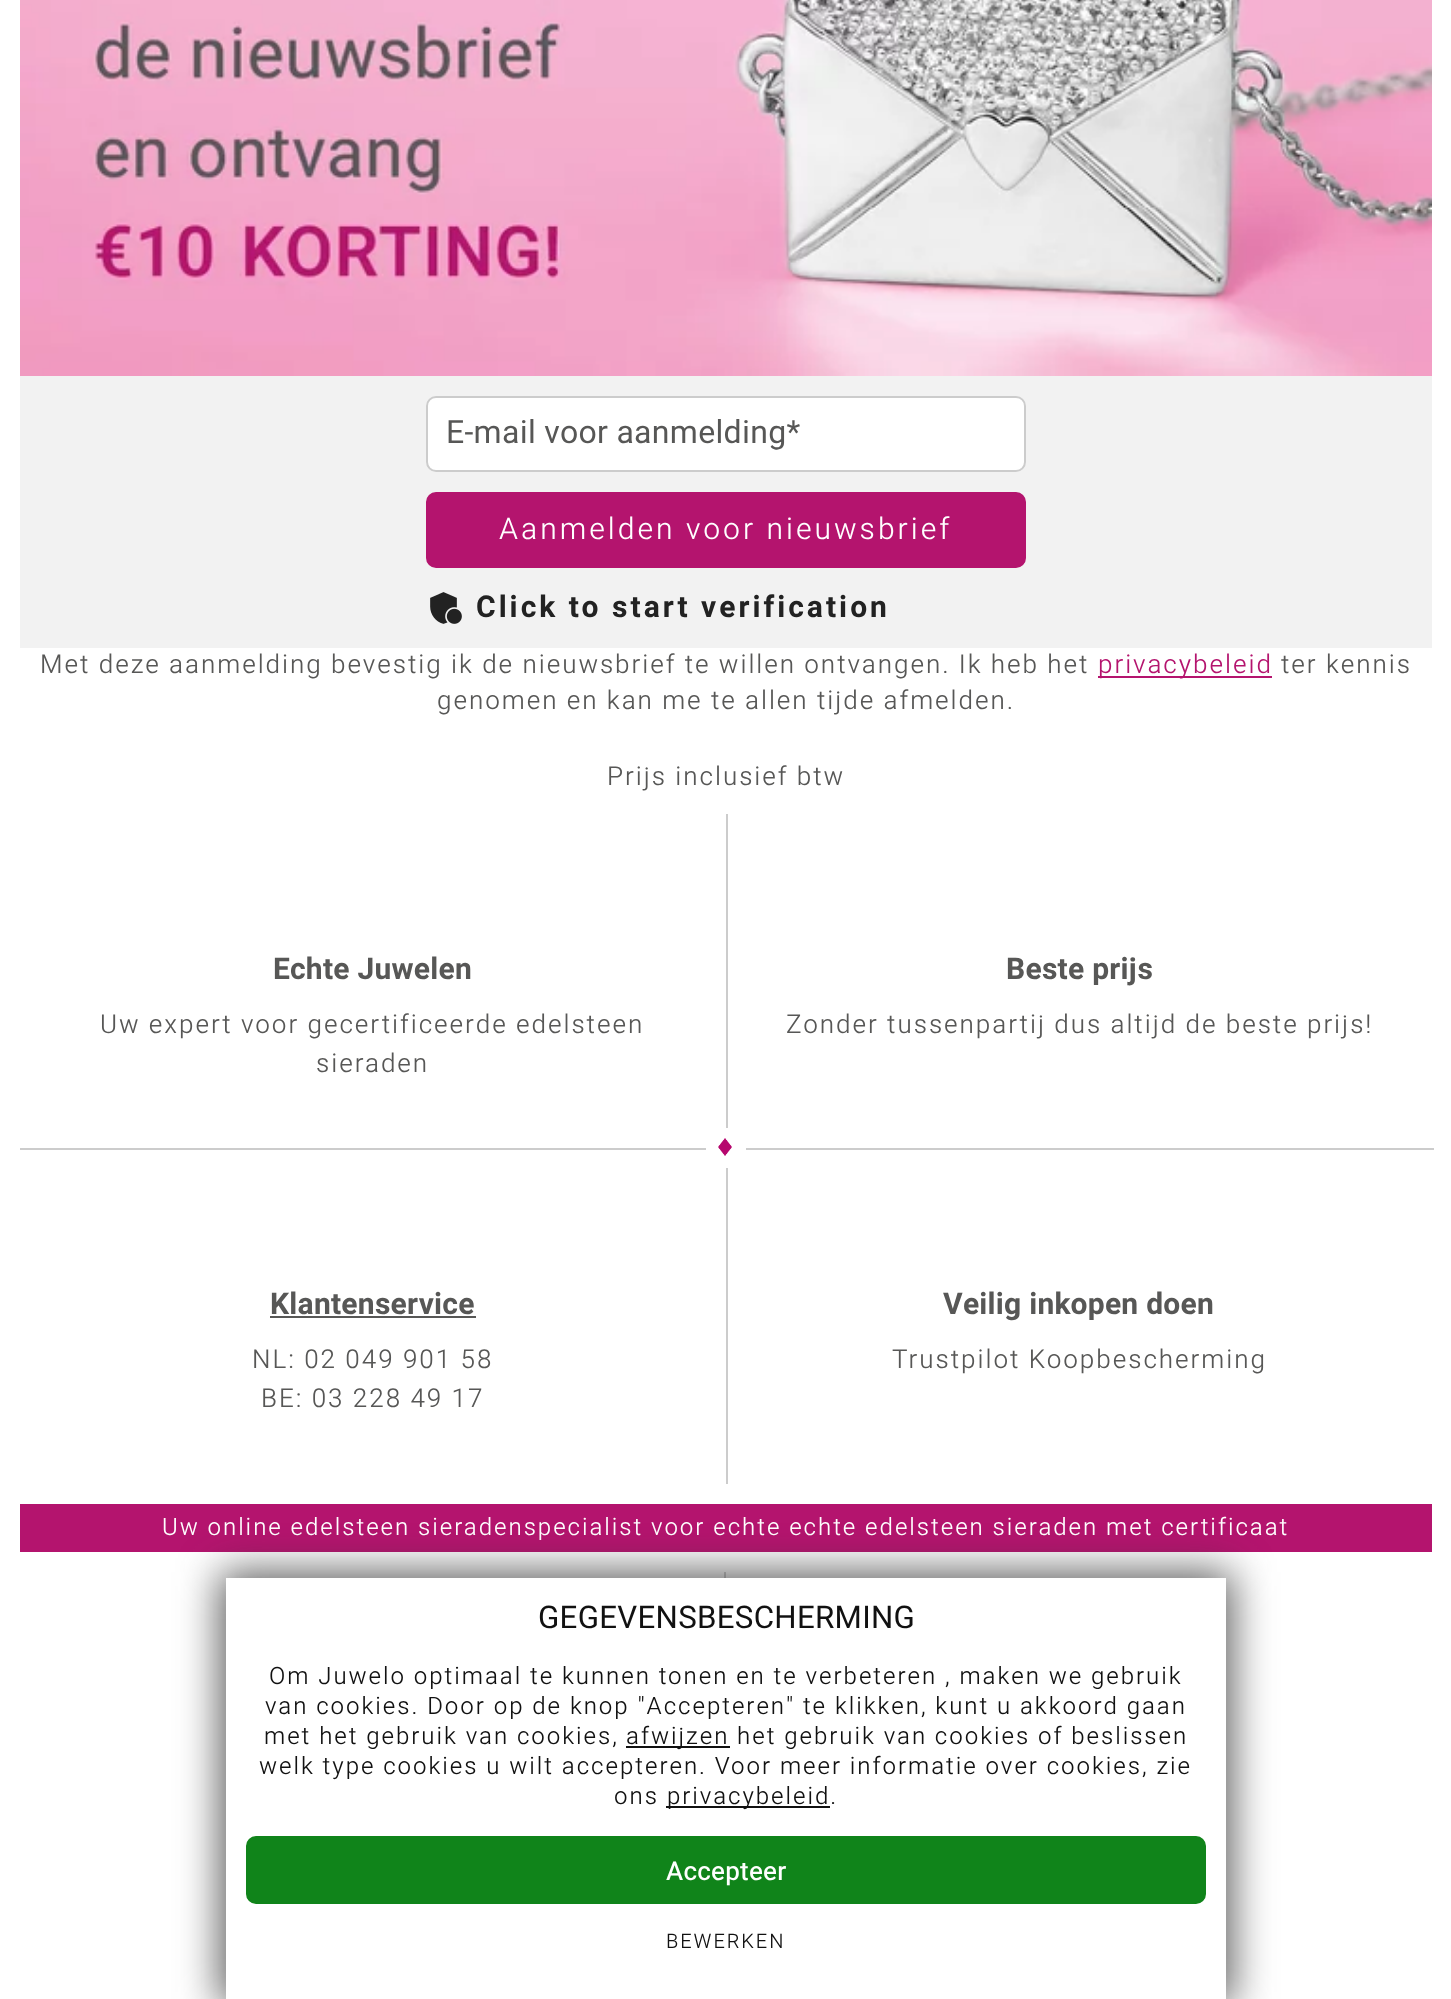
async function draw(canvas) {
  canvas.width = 1451
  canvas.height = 1999
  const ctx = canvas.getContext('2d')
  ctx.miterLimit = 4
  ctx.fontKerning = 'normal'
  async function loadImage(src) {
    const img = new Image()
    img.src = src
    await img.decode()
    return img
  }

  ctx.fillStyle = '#fff'
  ctx.fillRect(0, 0, 1451, 1999)
  ctx.drawImage(await loadImage('image0.png'), 20, 0, 1412, 376)
  ctx.fillStyle = '#f2f2f2'
  ctx.fillRect(20, 376, 1412, 272)
  ctx.fillStyle = '#fff'
  ctx.beginPath()
  ctx.roundRect(426, 396, 600, 76, 10)
  ctx.fill()
  ctx.beginPath()
  ctx.roundRect(427, 397, 598, 74, 9)
  ctx.strokeStyle = '#00000033'
  ctx.lineWidth = 2
  ctx.stroke()
  ctx.letterSpacing = '0.3px'
  ctx.font = '32px Heebo'
  ctx.fillStyle = '#575756'
  ctx.fillText('E-mail voor aanmelding*', 446, 443)
  ctx.fillStyle = '#b4146e'
  ctx.beginPath()
  ctx.roundRect(427, 493, 598, 74, 9)
  ctx.fill()
  ctx.strokeStyle = '#b4146e'
  ctx.stroke()
  ctx.letterSpacing = '3px'
  ctx.font = '300 30px Heebo'
  ctx.fillStyle = '#fff'
  ctx.fillText('Aanmelden voor nieuwsbrief', 499, 539)
  ctx.drawImage(await loadImage('image1.png'), 430, 592, 32, 32)
  ctx.font = 'bold 30px Heebo'
  ctx.fillStyle = '#222'
  ctx.fillText('Click to start verification', 476, 617)
  ctx.letterSpacing = '1.95px'
  ctx.font = '300 26px Heebo'
  ctx.fillStyle = '#575756'
  ctx.fillText('Met deze aanmelding bevestig ik de nieuwsbrief te willen ontvangen. Ik heb het', 40, 673)
  ctx.fillStyle = '#b4146e'
  ctx.fillRect(1098, 676, 174, 2)
  ctx.fillText('privacybeleid', 1098, 673)
  ctx.fillStyle = '#575756'
  ctx.fillText('ter kennis', 1281, 673)
  ctx.fillText('genomen en kan me te allen tijde afmelden.', 437, 709)
  ctx.fillText('Prijs inclusief btw', 607, 785)
  ctx.fillStyle = '#ccc'
  ctx.fillRect(726, 814, 2, 314)
  ctx.fillRect(20, 1148, 686, 2)
  ctx.letterSpacing = '0.25px'
  ctx.font = 'bold 30px Heebo'
  ctx.fillStyle = '#575756'
  ctx.fillText('Echte Juwelen', 273, 979)
  ctx.letterSpacing = '1.95px'
  ctx.font = '300 26px Heebo'
  ctx.fillText('Uw expert voor gecertificeerde edelsteen', 100, 1033)
  ctx.fillText('sieraden', 316, 1072)
  ctx.drawImage(await loadImage('image2.png'), 718, 1138, 14, 18)
  ctx.fillStyle = '#ccc'
  ctx.fillRect(746, 1148, 688, 2)
  ctx.letterSpacing = '0.25px'
  ctx.font = 'bold 30px Heebo'
  ctx.fillStyle = '#575756'
  ctx.fillText('Beste prijs', 1006, 979)
  ctx.letterSpacing = '1.95px'
  ctx.font = '300 26px Heebo'
  ctx.fillText('Zonder tussenpartij dus altijd de beste prijs!', 786, 1033)
  ctx.fillStyle = '#ccc'
  ctx.fillRect(726, 1168, 2, 316)
  ctx.letterSpacing = '0.25px'
  ctx.font = 'bold 30px Heebo'
  ctx.fillStyle = '#575756'
  ctx.fillText('Klantenservice', 270, 1314)
  ctx.fillRect(270, 1316, 206, 2)
  ctx.letterSpacing = '1.95px'
  ctx.font = '300 26px Heebo'
  ctx.fillText('NL: 02 049 901 58', 252, 1368)
  ctx.fillText('BE: 03 228 49 17', 261, 1407)
  ctx.letterSpacing = '0.25px'
  ctx.font = 'bold 30px Heebo'
  ctx.fillText('Veilig inkopen doen', 943, 1314)
  ctx.letterSpacing = '1.95px'
  ctx.font = '300 26px Heebo'
  ctx.fillText('Trustpilot Koopbescherming', 892, 1368)
  ctx.fillStyle = '#b4146e'
  ctx.fillRect(20, 1504, 1412, 48)
  ctx.font = '300 24px Heebo'
  ctx.fillStyle = '#fff'
  ctx.fillText('Uw online edelsteen sieradenspecialist voor echte echte edelsteen sieraden met certificaat', 162, 1535)
  ctx.fillStyle = '#ccc'
  ctx.fillRect(724, 1572, 2, 6)
  ctx.fillStyle = '#333333cc'
  ctx.filter = 'blur(21px)'
  ctx.beginPath()
  ctx.rect(220, 1572, 1012, 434)
  ctx.fill()
  ctx.filter = 'none'
  ctx.fillStyle = '#fff'
  ctx.fillRect(226, 1578, 1000, 421)
  ctx.letterSpacing = '0.3px'
  ctx.font = '31.25px Heebo'
  ctx.fillStyle = '#111'
  ctx.fillText('GEGEVENSBESCHERMING', 538, 1628)
  ctx.letterSpacing = '1.95px'
  ctx.font = '300 24px Heebo'
  ctx.fillText('Om Juwelo optimaal te kunnen tonen en te verbeteren , maken we gebruik', 269, 1684)
  ctx.fillText('van cookies. Door op de knop "Accepteren" te klikken, kunt u akkoord gaan', 265, 1714)
  ctx.fillText('met het gebruik van cookies,', 264, 1744)
  ctx.fillRect(626, 1746, 104, 2)
  ctx.fillText('afwijzen het gebruik van cookies of beslissen', 626, 1744)
  ctx.fillText('welk type cookies u wilt accepteren. Voor meer informatie over cookies, zie', 259, 1774)
  ctx.fillText('ons', 614, 1804)
  ctx.fillRect(666, 1806, 164, 2)
  ctx.fillText('privacybeleid.', 667, 1804)
  ctx.fillStyle = '#10841a'
  ctx.beginPath()
  ctx.roundRect(247, 1837, 958, 66, 9)
  ctx.fill()
  ctx.strokeStyle = '#10841a'
  ctx.stroke()
  ctx.letterSpacing = '0.25px'
  ctx.font = '500 26px Heebo'
  ctx.fillStyle = '#fff'
  ctx.fillText('Accepteer', 666, 1880)
  ctx.letterSpacing = '1.95px'
  ctx.font = '300 20px Heebo'
  ctx.fillStyle = '#111'
  ctx.fillText('BEWERKEN', 666, 1948)
}

draw(document.querySelector('canvas'))
